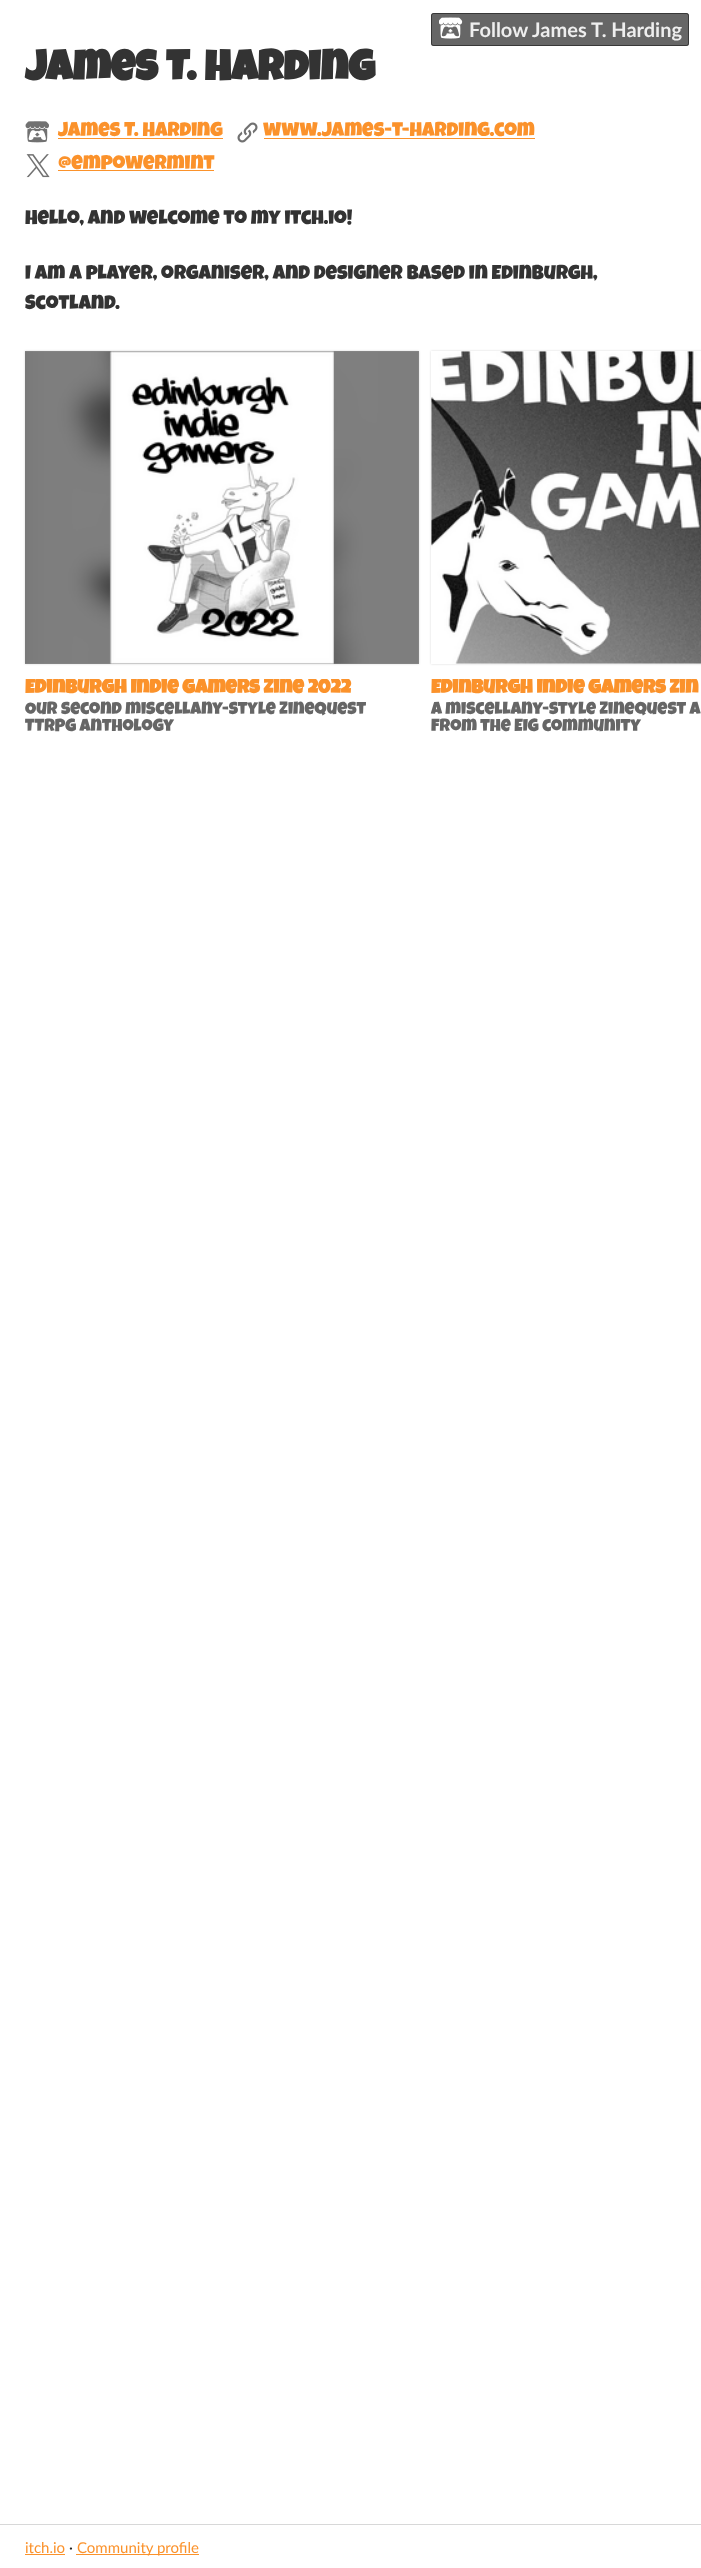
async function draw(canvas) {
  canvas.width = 701
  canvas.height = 2568
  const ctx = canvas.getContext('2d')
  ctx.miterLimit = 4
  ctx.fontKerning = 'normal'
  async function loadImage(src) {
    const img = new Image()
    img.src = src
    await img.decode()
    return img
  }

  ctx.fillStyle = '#fff'
  ctx.fillRect(0, 0, 701, 2568)
  ctx.fillStyle = '#666'
  ctx.beginPath()
  ctx.roundRect(431, 13, 258, 33, 2.5)
  ctx.fill()
  ctx.beginPath()
  ctx.roundRect(431.5, 13.5, 257, 32, 2)
  ctx.strokeStyle = '#0a0a0a80'
  ctx.stroke()
  ctx.drawImage(await loadImage('image0.png'), 439, 17, 24, 22)
  ctx.font = 'bold 20px Lato'
  ctx.fillStyle = '#eee'
  ctx.fillText('Follow James T. Harding', 469, 37)
  ctx.font = 'bold 42.5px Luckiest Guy'
  ctx.fillStyle = '#333'
  ctx.fillText('James T. Harding', 25, 80)
  ctx.drawImage(await loadImage('image1.png'), 25, 121, 24, 22)
  ctx.font = '20px Luckiest Guy'
  ctx.fillStyle = '#fb922b'
  ctx.fillText('James T. Harding', 58, 136)
  ctx.fillRect(58, 138, 165, 1)
  ctx.drawImage(await loadImage('image2.png'), 237, 122, 21, 21)
  ctx.fillText('www.james-t-harding.com', 263, 136)
  ctx.fillRect(264, 138, 271, 1)
  ctx.drawImage(await loadImage('image3.png'), 26, 154, 24, 24)
  ctx.fillText('@empowermint', 58, 169)
  ctx.fillRect(58, 170, 156, 1)
  ctx.fillStyle = '#333'
  ctx.fillText('Hello, and welcome to my itch.io!', 25, 224)
  ctx.fillText('I am a player, organiser, and designer based in Edinburgh,', 25, 279)
  ctx.fillText('Scotland.', 25, 309)
  ctx.fillStyle = '#00000026'
  ctx.filter = 'blur(1px)'
  ctx.beginPath()
  ctx.rect(25, 351, 394, 313)
  ctx.fill()
  ctx.filter = 'none'
  ctx.fillStyle = '#8d8d8d'
  ctx.fillRect(25, 351, 394, 313)
  ctx.drawImage(await loadImage('image4.png'), 25, 351, 394, 313)
  ctx.save()
  ctx.beginPath()
  ctx.rect(25, 679, 394, 20)
  ctx.clip()
  ctx.font = 'bold 20px Luckiest Guy'
  ctx.fillStyle = '#fb922b'
  ctx.fillText('Edinburgh Indie Gamers Zine 2022', 25, 693)
  ctx.restore()
  ctx.font = '17.5px Luckiest Guy'
  ctx.fillStyle = '#666'
  ctx.fillText('Our second miscellany-style ZineQuest', 25, 714)
  ctx.fillText('TTRPG anthology', 25, 731)
  ctx.fillStyle = '#00000026'
  ctx.filter = 'blur(1px)'
  ctx.beginPath()
  ctx.rect(431, 351, 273, 313)
  ctx.fill()
  ctx.filter = 'none'
  ctx.fillStyle = '#fff'
  ctx.fillRect(431, 351, 270, 313)
  ctx.drawImage(await loadImage('image5.png'), 431, 351, 270, 313)
  ctx.save()
  ctx.beginPath()
  ctx.rect(431, 679, 270, 20)
  ctx.clip()
  ctx.font = 'bold 20px Luckiest Guy'
  ctx.fillStyle = '#fb922b'
  ctx.fillText('Edinburgh Indie Gamers Zin', 431, 693)
  ctx.restore()
  ctx.fillStyle = '#666'
  ctx.fillText('A miscellany-style ZineQuest a', 431, 714)
  ctx.fillText('from the EIG community', 431, 731)
  ctx.fillStyle = '#d8d8d8'
  ctx.fillRect(0, 2524, 701, 1)
  ctx.font = '15px Lato'
  ctx.fillStyle = '#fb922b'
  ctx.fillText('itch.io', 25, 2553)
  ctx.fillRect(25, 2554, 40, 1)
  ctx.fillStyle = '#222'
  ctx.fillText('·', 69, 2553)
  ctx.fillStyle = '#fb922b'
  ctx.fillRect(76, 2554, 123, 1)
  ctx.fillText('Community profile', 77, 2553)
}

draw(document.querySelector('canvas'))
